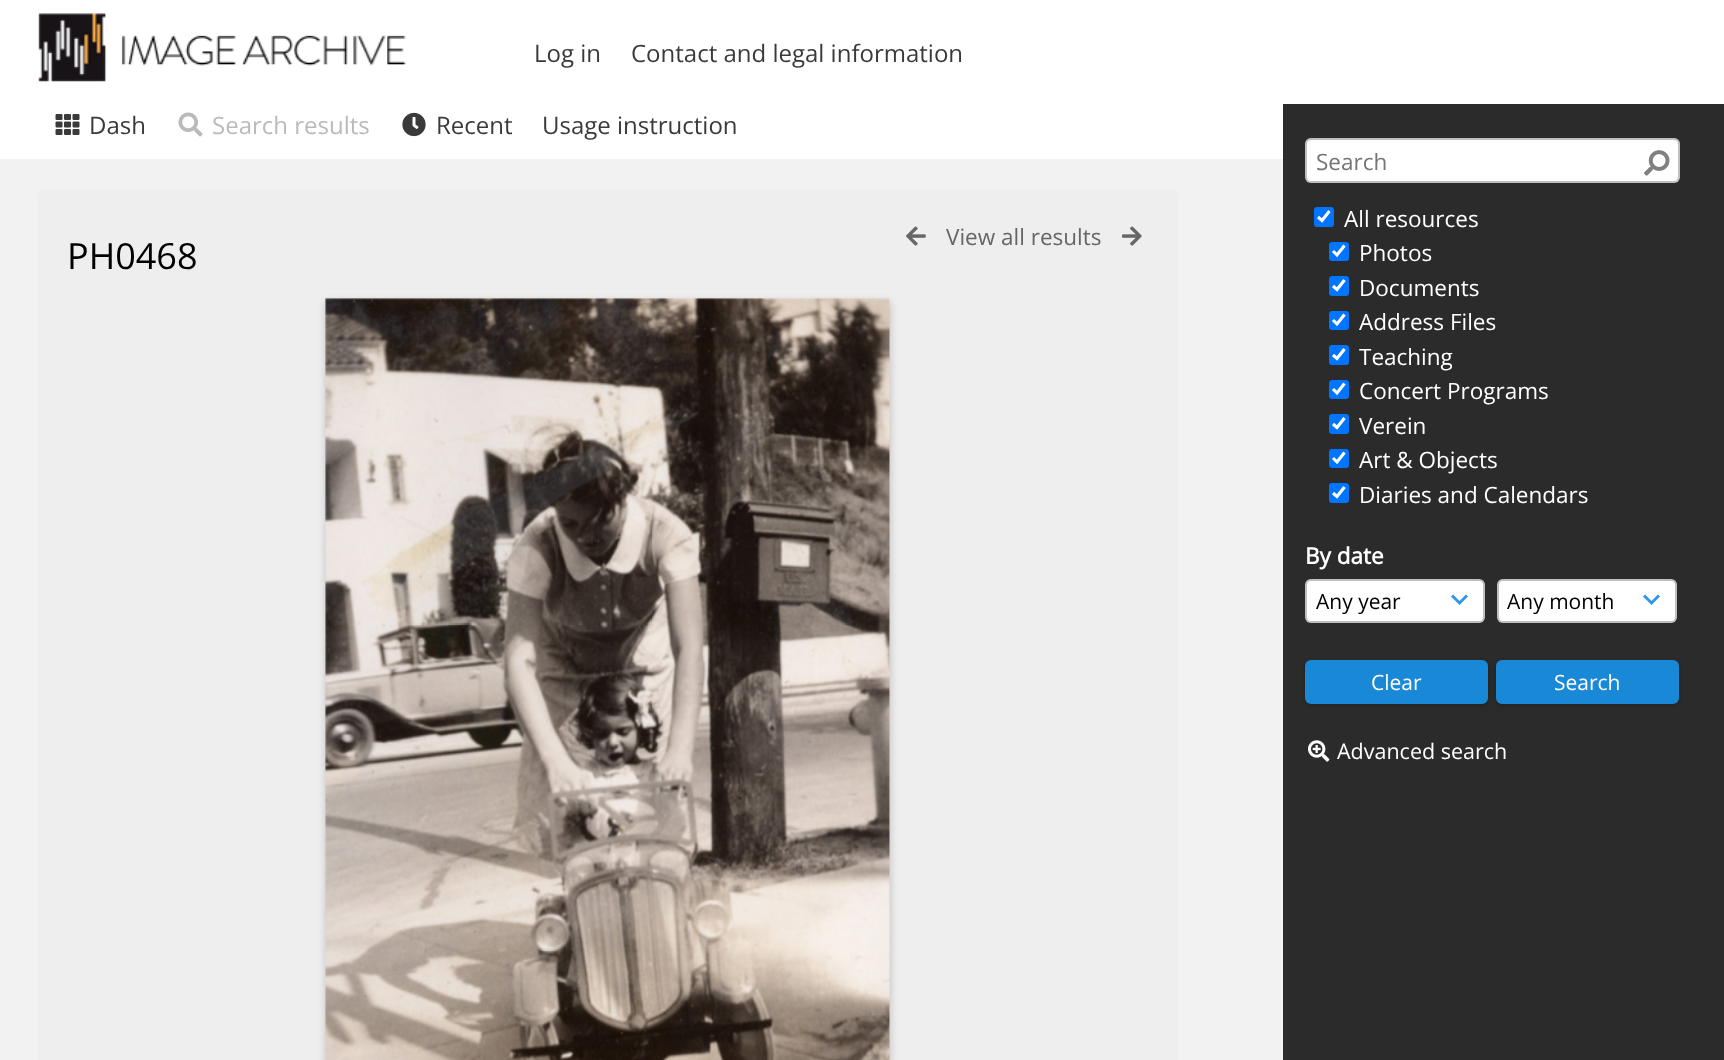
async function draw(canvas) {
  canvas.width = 1724
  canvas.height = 1060
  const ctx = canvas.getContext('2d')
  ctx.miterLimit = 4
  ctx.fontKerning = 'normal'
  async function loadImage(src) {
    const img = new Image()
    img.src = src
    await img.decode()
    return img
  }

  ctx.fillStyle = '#f2f2f2'
  ctx.fillRect(0, 0, 1724, 1060)
  ctx.fillStyle = '#fff'
  ctx.fillRect(0, 0, 1724, 159)
  ctx.drawImage(await loadImage('image0.png'), 38, 13, 369, 69)
  ctx.font = '24px Open Sans'
  ctx.fillStyle = '#3a3a3a'
  ctx.fillText('Log in', 534, 62)
  ctx.fillText('Contact and legal information', 631, 62)
  ctx.drawImage(await loadImage('image1.png'), 55, 114, 25, 21)
  ctx.fillText('Dash', 89, 134)
  ctx.drawImage(await loadImage('image2.png'), 178, 112, 25, 25)
  ctx.fillStyle = '#bababa'
  ctx.fillText('Search results', 212, 134)
  ctx.drawImage(await loadImage('image3.png'), 402, 112, 24, 25)
  ctx.fillStyle = '#3a3a3a'
  ctx.fillText('Recent', 436, 134)
  ctx.fillText('Usage instruction', 542, 134)
  ctx.fillStyle = '#eee'
  ctx.beginPath()
  ctx.moveTo(44, 189)
  ctx.lineTo(1172, 189)
  ctx.bezierCurveTo(1175.5, 189, 1178, 191.5, 1178, 195)
  ctx.lineTo(1178, 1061)
  ctx.lineTo(38, 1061)
  ctx.lineTo(38, 195)
  ctx.bezierCurveTo(38, 191.5, 40.5, 189, 44, 189)
  ctx.closePath()
  ctx.fill()
  ctx.drawImage(await loadImage('image4.png'), 906, 226, 20, 20)
  ctx.font = '22.5px Open Sans'
  ctx.fillStyle = '#666'
  ctx.fillText('View all results', 946, 245)
  ctx.drawImage(await loadImage('image5.png'), 1122, 226, 20, 20)
  ctx.font = '36px Open Sans'
  ctx.fillStyle = '#000'
  ctx.fillText('PH0468', 67, 269)
  ctx.fillStyle = '#00000033'
  ctx.filter = 'blur(4.5px)'
  ctx.beginPath()
  ctx.rect(326, 302, 564, 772)
  ctx.fill()
  ctx.filter = 'none'
  ctx.drawImage(await loadImage('image6.png'), 325, 298, 565, 762)
  ctx.fillStyle = '#2b2b2b'
  ctx.fillRect(1283, 104, 441, 956)
  ctx.fillStyle = '#fff'
  ctx.beginPath()
  ctx.roundRect(1305, 138, 375, 45, 6)
  ctx.fill()
  ctx.beginPath()
  ctx.roundRect(1306, 139, 373, 43, 5)
  ctx.strokeStyle = '#00000040'
  ctx.lineWidth = 2
  ctx.stroke()
  ctx.font = '22.5px Open Sans'
  ctx.fillStyle = '#757575'
  ctx.fillText('Search', 1316, 170)
  ctx.drawImage(await loadImage('image7.png'), 1644, 150, 26, 26)
  ctx.fillStyle = '#0075ff'
  ctx.beginPath()
  ctx.roundRect(1314, 207, 20, 20, 3)
  ctx.fill()
  ctx.beginPath()
  ctx.moveTo(1318, 217)
  ctx.lineTo(1322, 220.5)
  ctx.lineTo(1329.5, 211)
  ctx.strokeStyle = '#fff'
  ctx.lineWidth = 3.1
  ctx.stroke()
  ctx.fillStyle = '#fff'
  ctx.fillText('All resources', 1344, 227)
  ctx.fillStyle = '#0075ff'
  ctx.beginPath()
  ctx.roundRect(1329, 242, 20, 19, 3)
  ctx.fill()
  ctx.beginPath()
  ctx.moveTo(1333, 251)
  ctx.lineTo(1337, 255)
  ctx.lineTo(1344.5, 245.5)
  ctx.stroke()
  ctx.fillStyle = '#fff'
  ctx.fillText('Photos', 1359, 261)
  ctx.fillStyle = '#0075ff'
  ctx.beginPath()
  ctx.roundRect(1329, 276, 20, 20, 3)
  ctx.fill()
  ctx.beginPath()
  ctx.moveTo(1333, 286)
  ctx.lineTo(1337, 289.5)
  ctx.lineTo(1344.5, 280)
  ctx.stroke()
  ctx.fillStyle = '#fff'
  ctx.fillText('Documents', 1359, 296)
  ctx.fillStyle = '#0075ff'
  ctx.beginPath()
  ctx.roundRect(1329, 311, 20, 19, 3)
  ctx.fill()
  ctx.beginPath()
  ctx.moveTo(1333, 320)
  ctx.lineTo(1337, 324)
  ctx.lineTo(1344.5, 314.5)
  ctx.stroke()
  ctx.fillStyle = '#fff'
  ctx.fillText('Address Files', 1359, 330)
  ctx.fillStyle = '#0075ff'
  ctx.beginPath()
  ctx.roundRect(1329, 345, 20, 20, 3)
  ctx.fill()
  ctx.beginPath()
  ctx.moveTo(1333, 355)
  ctx.lineTo(1337, 358.5)
  ctx.lineTo(1344.5, 349)
  ctx.stroke()
  ctx.fillStyle = '#fff'
  ctx.fillText('Teaching', 1359, 365)
  ctx.fillStyle = '#0075ff'
  ctx.beginPath()
  ctx.roundRect(1329, 380, 20, 19, 3)
  ctx.fill()
  ctx.beginPath()
  ctx.moveTo(1333, 389)
  ctx.lineTo(1337, 393)
  ctx.lineTo(1344.5, 383.5)
  ctx.stroke()
  ctx.fillStyle = '#fff'
  ctx.fillText('Concert Programs', 1359, 399)
  ctx.fillStyle = '#0075ff'
  ctx.beginPath()
  ctx.roundRect(1329, 414, 20, 20, 3)
  ctx.fill()
  ctx.beginPath()
  ctx.moveTo(1333, 424)
  ctx.lineTo(1337, 427.5)
  ctx.lineTo(1344.5, 418)
  ctx.stroke()
  ctx.fillStyle = '#fff'
  ctx.fillText('Verein', 1359, 434)
  ctx.fillStyle = '#0075ff'
  ctx.beginPath()
  ctx.roundRect(1329, 449, 20, 19, 3)
  ctx.fill()
  ctx.beginPath()
  ctx.moveTo(1333, 458)
  ctx.lineTo(1337, 462)
  ctx.lineTo(1344.5, 452.5)
  ctx.stroke()
  ctx.fillStyle = '#fff'
  ctx.fillText('Art & Objects', 1359, 468)
  ctx.fillStyle = '#0075ff'
  ctx.beginPath()
  ctx.roundRect(1329, 483, 20, 20, 3)
  ctx.fill()
  ctx.beginPath()
  ctx.moveTo(1333, 493)
  ctx.lineTo(1337, 496.5)
  ctx.lineTo(1344.5, 487)
  ctx.stroke()
  ctx.fillStyle = '#fff'
  ctx.fillText('Diaries and Calendars', 1359, 503)
  ctx.font = 'bold 22.5px Open Sans'
  ctx.fillText('By date', 1305, 564)
  ctx.beginPath()
  ctx.roundRect(1305, 579, 180, 44, 6)
  ctx.fill()
  ctx.beginPath()
  ctx.moveTo(1467, 595.5)
  ctx.lineTo(1459.5, 603)
  ctx.lineTo(1452, 595.5)
  ctx.strokeStyle = '#2e99e6'
  ctx.lineWidth = 3
  ctx.stroke()
  ctx.beginPath()
  ctx.roundRect(1306, 580, 178, 42, 5)
  ctx.strokeStyle = '#00000040'
  ctx.lineWidth = 2
  ctx.stroke()
  ctx.font = '21px Open Sans'
  ctx.fillStyle = '#000'
  ctx.fillText('Any year', 1316, 609)
  ctx.fillStyle = '#fff'
  ctx.beginPath()
  ctx.roundRect(1497, 579, 180, 44, 6)
  ctx.fill()
  ctx.beginPath()
  ctx.moveTo(1659, 595.5)
  ctx.lineTo(1651.5, 603)
  ctx.lineTo(1644, 595.5)
  ctx.strokeStyle = '#2e99e6'
  ctx.lineWidth = 3
  ctx.stroke()
  ctx.beginPath()
  ctx.roundRect(1498, 580, 178, 42, 5)
  ctx.strokeStyle = '#00000040'
  ctx.lineWidth = 2
  ctx.stroke()
  ctx.fillStyle = '#000'
  ctx.fillText('Any month', 1507, 609)
  ctx.fillStyle = '#00000040'
  ctx.filter = 'blur(2px)'
  ctx.beginPath()
  ctx.roundRect(1305, 662, 183, 43, 6)
  ctx.fill()
  ctx.filter = 'none'
  ctx.fillStyle = '#1988d7'
  ctx.beginPath()
  ctx.roundRect(1305, 660, 183, 44, 6)
  ctx.fill()
  ctx.fillStyle = '#fff'
  ctx.fillText('Clear', 1371, 690)
  ctx.fillStyle = '#00000040'
  ctx.filter = 'blur(2px)'
  ctx.beginPath()
  ctx.roundRect(1496, 662, 183, 43, 6)
  ctx.fill()
  ctx.filter = 'none'
  ctx.fillStyle = '#1988d7'
  ctx.beginPath()
  ctx.roundRect(1496, 660, 183, 44, 6)
  ctx.fill()
  ctx.fillStyle = '#fff'
  ctx.fillText('Search', 1554, 690)
  ctx.drawImage(await loadImage('image8.png'), 1308, 740, 22, 22)
  ctx.font = '21.5px Open Sans'
  ctx.fillText('Advanced search', 1337, 759)
}

draw(document.querySelector('canvas'))
